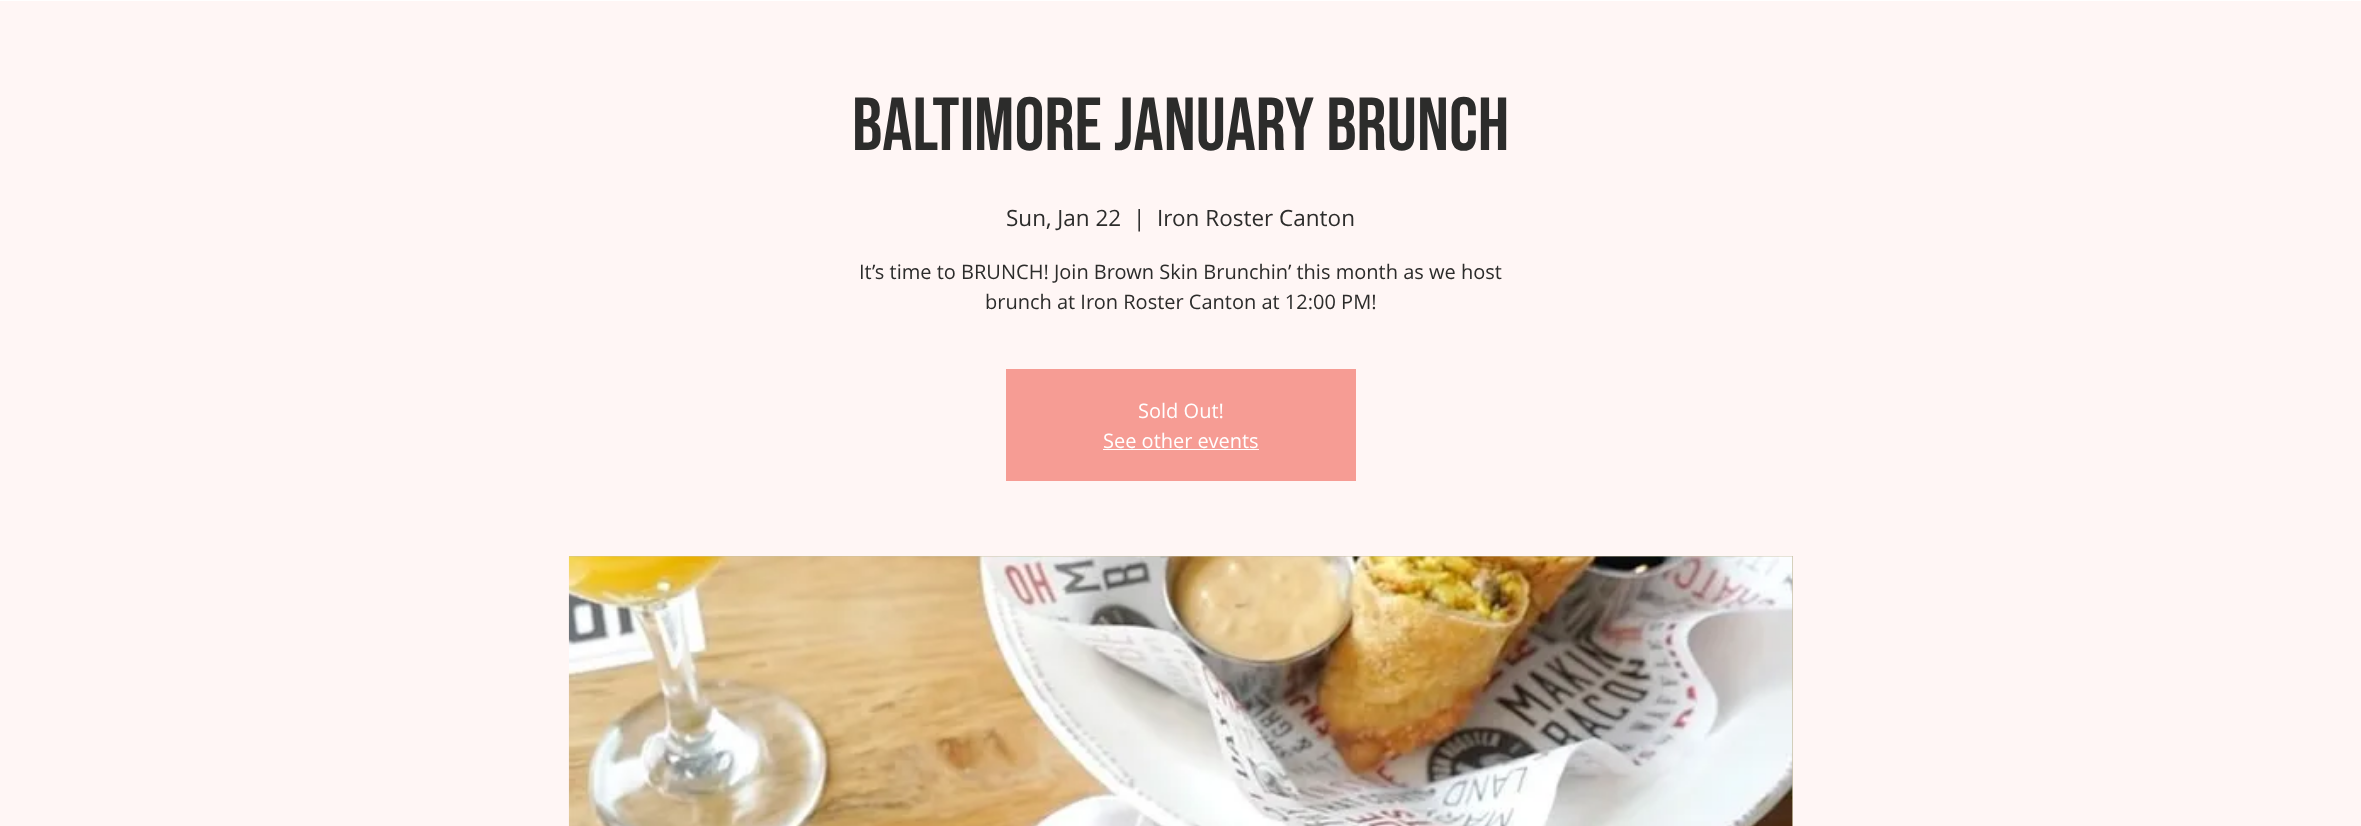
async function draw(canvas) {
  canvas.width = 2361
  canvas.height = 826
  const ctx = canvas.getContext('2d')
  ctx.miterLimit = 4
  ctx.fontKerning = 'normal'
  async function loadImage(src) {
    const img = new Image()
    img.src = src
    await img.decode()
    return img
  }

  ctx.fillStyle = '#fff'
  ctx.fillRect(0, 0, 2361, 826)
  ctx.fillStyle = '#fff6f5'
  ctx.fillRect(0, 1, 2361, 825)
  ctx.font = '75px Bebas Neue'
  ctx.fillStyle = '#2c2c2b'
  ctx.fillText('Baltimore January Brunch', 852, 150)
  ctx.font = '22.5px Open Sans'
  ctx.fillText('Sun, Jan 22', 1006, 226)
  ctx.fillText('|', 1133, 226)
  ctx.fillText('Iron Roster Canton', 1157, 226)
  ctx.font = '20px Open Sans'
  ctx.fillText('It’s time to BRUNCH! Join Brown Skin Brunchin’ this month as we host', 859, 279)
  ctx.fillText('brunch at Iron Roster Canton at 12:00 PM!', 985, 309)
  ctx.fillStyle = '#f69c94'
  ctx.fillRect(1006, 369, 350, 112)
  ctx.fillStyle = '#fff'
  ctx.fillText('Sold Out!', 1138, 418)
  ctx.fillText('See other events', 1103, 448)
  ctx.fillRect(1103, 449, 156, 1)
  ctx.fillStyle = '#cac2a6'
  ctx.fillRect(569, 556, 1224, 270)
  ctx.drawImage(await loadImage('image0.png'), 568, 556, 1225, 270)
}

draw(document.querySelector('canvas'))
